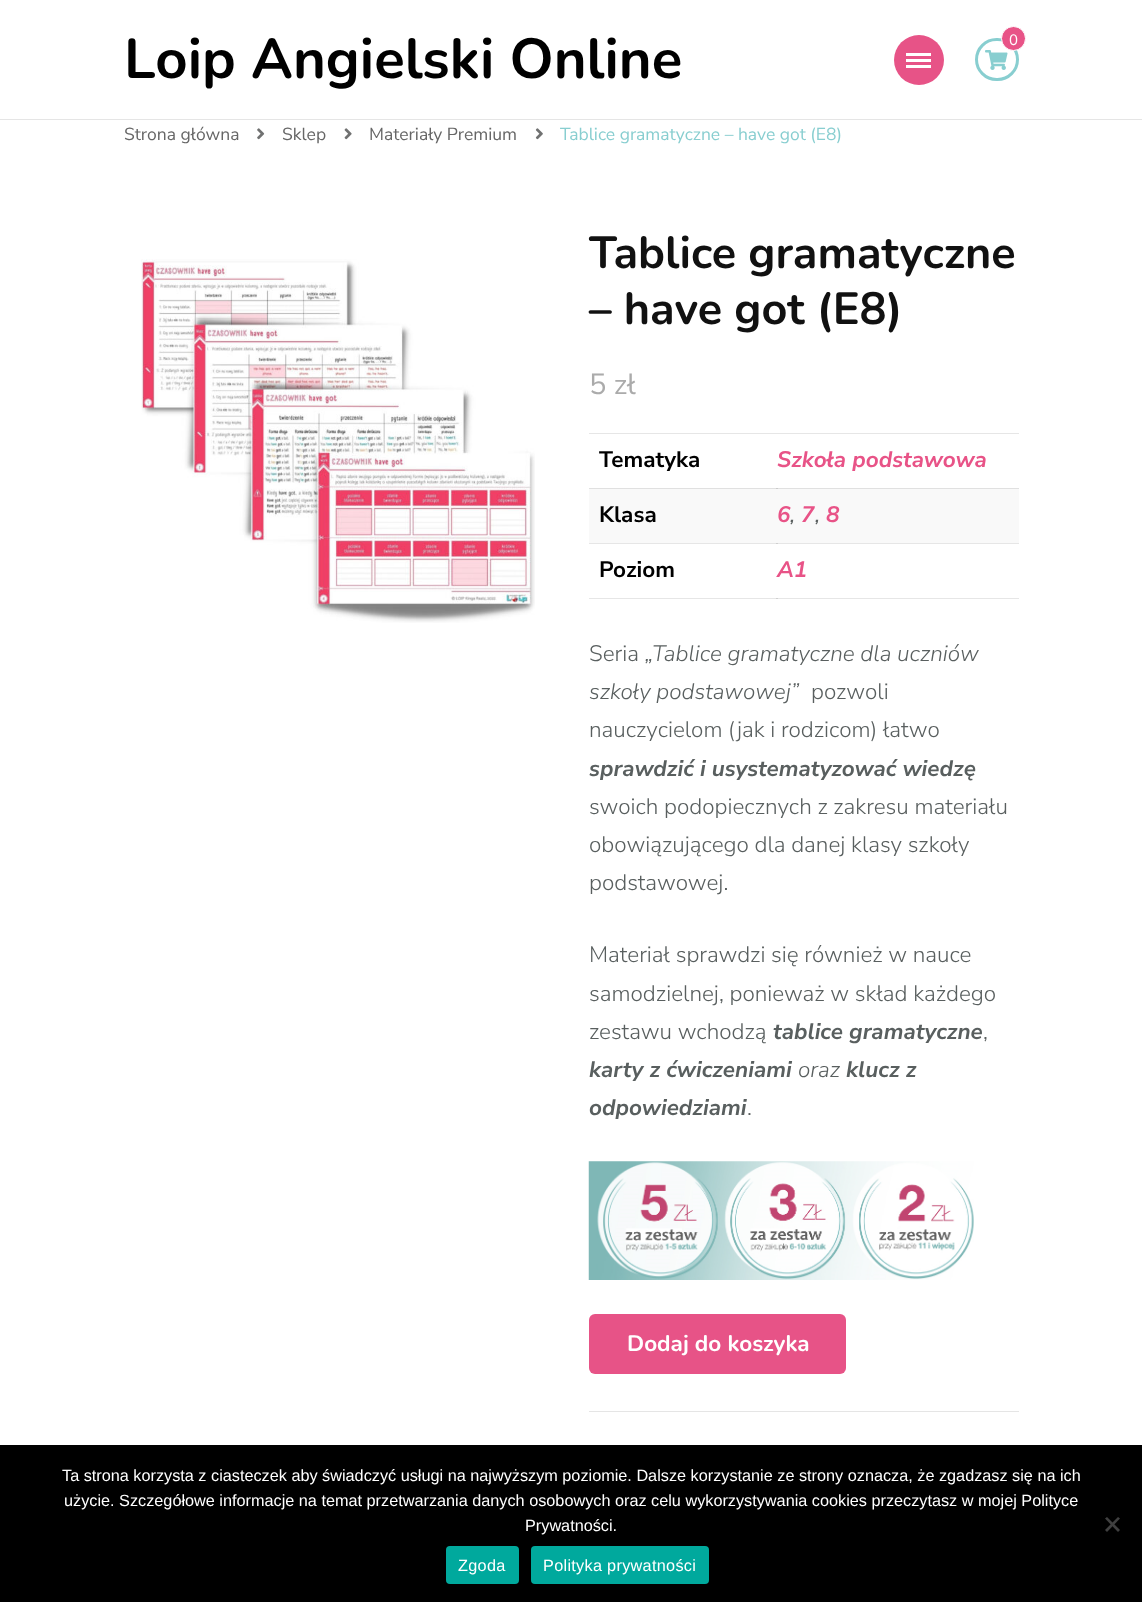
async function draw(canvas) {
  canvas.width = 1142
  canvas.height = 1602
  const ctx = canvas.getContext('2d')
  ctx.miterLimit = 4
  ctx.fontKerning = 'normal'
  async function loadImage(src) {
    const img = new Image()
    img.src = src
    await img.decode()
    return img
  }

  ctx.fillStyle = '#fff'
  ctx.fillRect(0, 0, 1142, 1602)
  ctx.fillStyle = '#e6e6e6'
  ctx.fillRect(589, 543, 430, 1)
  ctx.fillRect(589, 598, 430, 1)
  ctx.fillStyle = '#e5e5e5'
  ctx.fillRect(0, 119, 1142, 1)
  ctx.font = 'bold 56.25px Nunito'
  ctx.fillStyle = '#000'
  ctx.fillText('Loip Angielski Online', 124, 78)
  ctx.fillStyle = '#e75387'
  ctx.beginPath()
  ctx.arc(919, 60, 25, 0, 2 * Math.PI)
  ctx.fill()
  ctx.fillStyle = '#fff'
  ctx.fillRect(906, 53, 25, 3)
  ctx.fillRect(906, 59, 25, 3)
  ctx.fillRect(906, 65, 25, 3)
  ctx.beginPath()
  ctx.roundRect(976.5, 39.5, 41, 40, 20)
  ctx.strokeStyle = '#88ced0'
  ctx.lineWidth = 3
  ctx.stroke()
  ctx.drawImage(await loadImage('image0.png'), 985, 50, 23, 20)
  ctx.fillStyle = '#e85387'
  ctx.beginPath()
  ctx.arc(1013.5, 38.5, 12, 0, 2 * Math.PI)
  ctx.fill()
  ctx.strokeStyle = '#fff'
  ctx.lineWidth = 1
  ctx.stroke()
  ctx.font = '15px Nunito Sans'
  ctx.fillStyle = '#fff'
  ctx.fillText('0', 1009, 45)
  ctx.font = '17.5px Nunito Sans'
  ctx.fillStyle = '#666'
  ctx.fillText('Strona główna', 124, 140)
  ctx.drawImage(await loadImage('image1.png'), 257, 128, 8, 12)
  ctx.fillText('Sklep', 282, 140)
  ctx.drawImage(await loadImage('image2.png'), 344, 128, 8, 12)
  ctx.fillText('Materiały Premium', 369, 140)
  ctx.drawImage(await loadImage('image3.png'), 535, 128, 8, 12)
  ctx.fillStyle = '#88ced0'
  ctx.fillText('Tablice gramatyczne – have got (E8)', 560, 140)
  ctx.drawImage(await loadImage('image4.png'), 141, 259, 394, 364)
  ctx.font = 'bold 45px Nunito'
  ctx.fillStyle = '#111'
  ctx.fillText('Tablice gramatyczne', 589, 268)
  ctx.fillText('– have got (E8)', 589, 324)
  ctx.font = '29px Nunito Sans'
  ctx.fillStyle = '#ababab'
  ctx.fillText('5 zł', 589, 394)
  ctx.fillStyle = '#e6e6e6'
  ctx.fillRect(589, 433, 430, 1)
  ctx.font = 'bold 22.5px Nunito Sans'
  ctx.fillStyle = '#000'
  ctx.fillText('Tematyka', 599, 467)
  ctx.fillStyle = '#e0e0e0'
  ctx.fillRect(589, 488, 430, 1)
  ctx.fillStyle = '#cacaca'
  ctx.fillRect(776, 488, 2, 1)
  ctx.font = 'italic bold 22.5px Nunito Sans'
  ctx.fillStyle = '#e85387'
  ctx.fillText('Szkoła podstawowa', 777, 467)
  ctx.fillStyle = '#f9f9f9'
  ctx.fillRect(589, 489, 430, 54)
  ctx.font = 'bold 22.5px Nunito Sans'
  ctx.fillStyle = '#000'
  ctx.fillText('Klasa', 599, 522)
  ctx.fillStyle = '#cfcfcf'
  ctx.fillRect(776, 543, 2, 1)
  ctx.font = 'italic bold 22.5px Nunito Sans'
  ctx.fillStyle = '#e85387'
  ctx.fillText('6', 777, 522)
  ctx.font = 'italic 22.5px Nunito Sans'
  ctx.fillStyle = '#595f5f'
  ctx.fillText(',', 790, 522)
  ctx.font = 'italic bold 22.5px Nunito Sans'
  ctx.fillStyle = '#e85387'
  ctx.fillText('7', 801, 522)
  ctx.font = 'italic 22.5px Nunito Sans'
  ctx.fillStyle = '#595f5f'
  ctx.fillText(',', 815, 522)
  ctx.font = 'italic bold 22.5px Nunito Sans'
  ctx.fillStyle = '#e85387'
  ctx.fillText('8', 826, 522)
  ctx.font = 'bold 22.5px Nunito Sans'
  ctx.fillStyle = '#000'
  ctx.fillText('Poziom', 599, 577)
  ctx.fillStyle = '#cfcfcf'
  ctx.fillRect(776, 598, 2, 1)
  ctx.font = 'italic bold 22.5px Nunito Sans'
  ctx.fillStyle = '#e85387'
  ctx.fillText('A1', 777, 577)
  ctx.font = '300 22.5px Nunito Sans'
  ctx.fillStyle = '#595f5f'
  ctx.fillText('Seria', 589, 661)
  ctx.font = 'italic 300 22.5px Nunito Sans'
  ctx.fillText('„Tablice gramatyczne dla uczniów', 645, 661)
  ctx.fillText('szkoły podstawowej”', 589, 699)
  ctx.font = '300 22.5px Nunito Sans'
  ctx.fillText('pozwoli', 811, 699)
  ctx.fillText('nauczycielom (jak i rodzicom) łatwo', 589, 737)
  ctx.font = 'italic bold 22.5px Nunito Sans'
  ctx.fillText('sprawdzić i usystematyzować wiedzę', 589, 776)
  ctx.font = '300 22.5px Nunito Sans'
  ctx.fillText('swoich podopiecznych z zakresu materiału', 589, 814)
  ctx.fillText('obowiązującego dla danej klasy szkoły', 589, 852)
  ctx.fillText('podstawowej.', 589, 890)
  ctx.fillText('Materiał sprawdzi się również w nauce', 589, 962)
  ctx.fillText('samodzielnej, ponieważ w skład każdego', 589, 1001)
  ctx.fillText('zestawu wchodzą', 589, 1039)
  ctx.font = 'italic bold 22.5px Nunito Sans'
  ctx.fillText('tablice gramatyczne', 773, 1039)
  ctx.font = '300 22.5px Nunito Sans'
  ctx.fillText(',', 983, 1039)
  ctx.font = 'italic bold 22.5px Nunito Sans'
  ctx.fillText('karty z ćwiczeniami', 589, 1077)
  ctx.font = 'italic 300 22.5px Nunito Sans'
  ctx.fillText('oraz', 798, 1077)
  ctx.font = 'italic bold 22.5px Nunito Sans'
  ctx.fillText('klucz z', 846, 1077)
  ctx.fillText('odpowiedziami', 589, 1115)
  ctx.font = '300 22.5px Nunito Sans'
  ctx.fillText('.', 747, 1115)
  ctx.drawImage(await loadImage('image5.png'), 588, 1161, 386, 119)
  ctx.fillStyle = '#e5e5e5'
  ctx.fillRect(589, 1411, 430, 1)
  ctx.fillStyle = '#e75387'
  ctx.beginPath()
  ctx.roundRect(589, 1314, 257, 60, 6)
  ctx.fill()
  ctx.font = 'bold 22.5px Nunito'
  ctx.fillStyle = '#fff'
  ctx.fillText('Dodaj do koszyka', 627, 1351)
  ctx.fillStyle = '#000'
  ctx.fillRect(0, 1445, 1142, 157)
  ctx.font = '16.25px Liberation Sans'
  ctx.fillStyle = '#fff'
  ctx.fillText('Ta strona korzysta z ciasteczek aby świadczyć usługi na najwyższym poziomie. Dalsze korzystanie ze strony oznacza, że zgadzasz się na ich', 62, 1481)
  ctx.fillText('użycie. Szczegółowe informacje na temat przetwarzania danych osobowych oraz celu wykorzystywania cookies przeczytasz w mojej Polityce', 64, 1506)
  ctx.fillText('Prywatności.', 525, 1531)
  ctx.fillStyle = '#404040'
  ctx.beginPath()
  ctx.moveTo(1118, 1517)
  ctx.lineTo(1120, 1518.5)
  ctx.lineTo(1107, 1532)
  ctx.lineTo(1105, 1530)
  ctx.closePath()
  ctx.fill()
  ctx.beginPath()
  ctx.moveTo(1105, 1518.5)
  ctx.lineTo(1107, 1517)
  ctx.lineTo(1120, 1530)
  ctx.lineTo(1118, 1532)
  ctx.closePath()
  ctx.fill()
  ctx.fillStyle = '#00a99d'
  ctx.beginPath()
  ctx.roundRect(446, 1546, 73, 38, 4)
  ctx.fill()
  ctx.letterSpacing = '0.3px'
  ctx.fillStyle = '#fff'
  ctx.fillText('Zgoda', 458, 1571)
  ctx.fillStyle = '#00a99d'
  ctx.beginPath()
  ctx.roundRect(531, 1546, 178, 38, 4)
  ctx.fill()
  ctx.fillStyle = '#fff'
  ctx.fillText('Polityka prywatności', 543, 1571)
}

draw(document.querySelector('canvas'))
